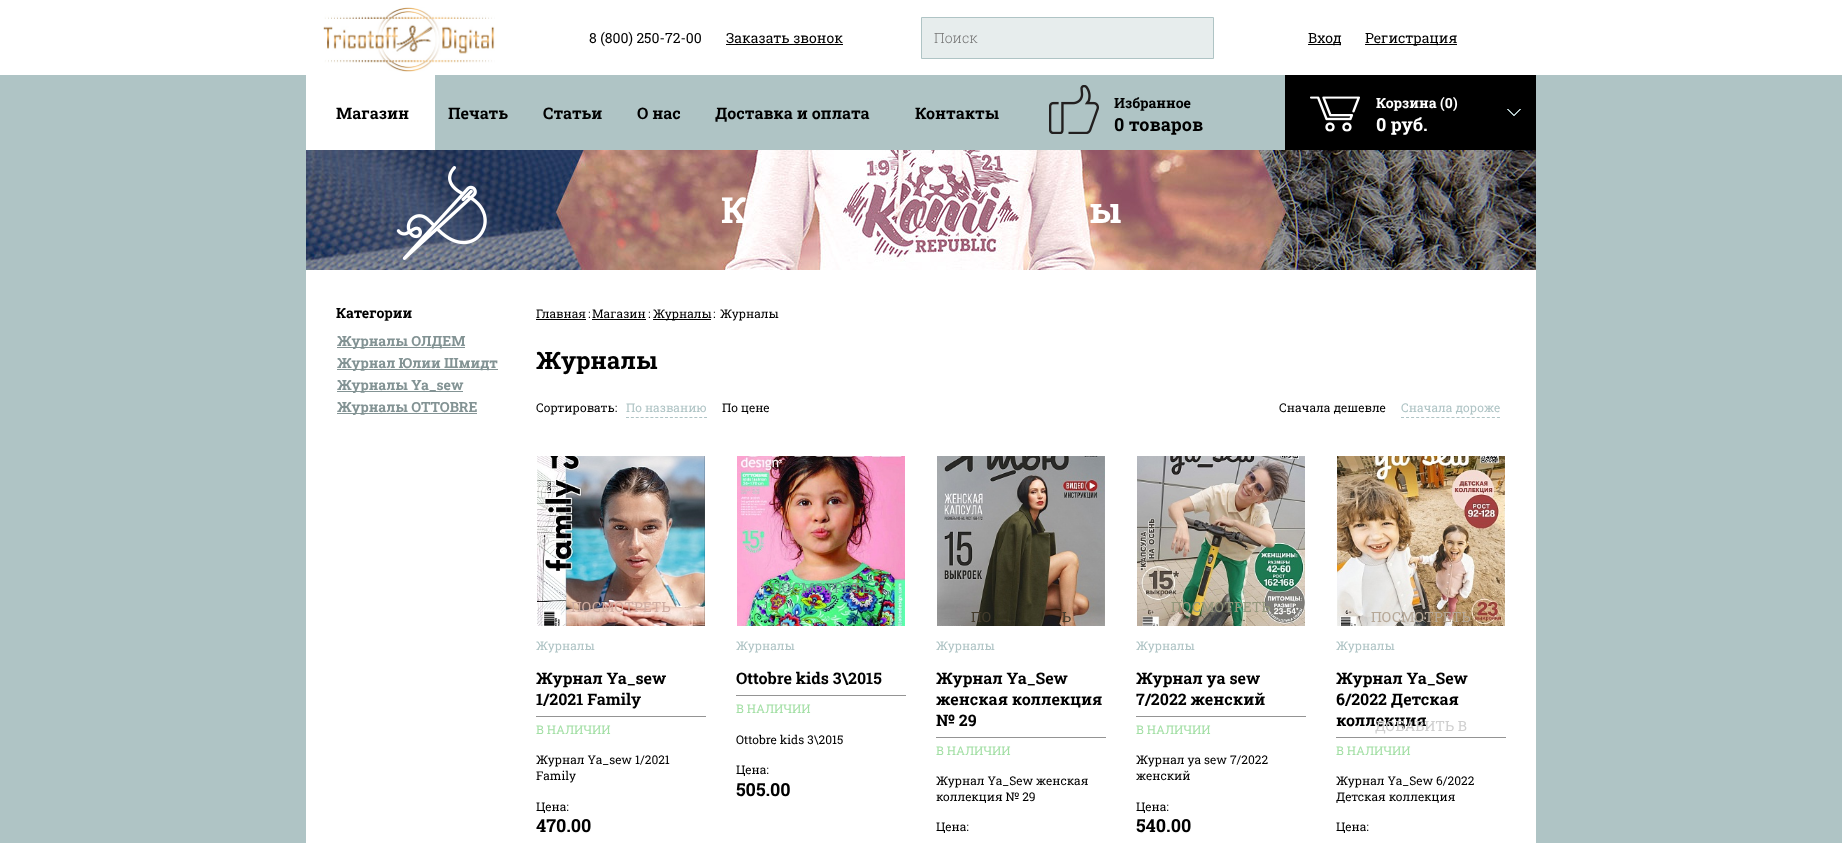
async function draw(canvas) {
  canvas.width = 1842
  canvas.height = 843
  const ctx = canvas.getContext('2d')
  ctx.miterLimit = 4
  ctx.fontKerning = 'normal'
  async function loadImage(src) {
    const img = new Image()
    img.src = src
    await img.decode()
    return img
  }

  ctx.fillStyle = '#afc4c5'
  ctx.fillRect(0, 0, 1842, 843)
  ctx.fillStyle = '#fff'
  ctx.fillRect(0, 0, 1842, 75)
  ctx.drawImage(await loadImage('image0.png'), 323, 7, 172, 65)
  ctx.font = '14px Roboto Slab'
  ctx.fillStyle = '#000'
  ctx.fillText('8 (800) 250-72-00', 589, 43)
  ctx.fillText('Заказать звонок', 726, 43)
  ctx.fillRect(726, 44, 117, 1)
  ctx.fillStyle = '#e7eded'
  ctx.beginPath()
  ctx.rect(921.5, 17.5, 292, 41)
  ctx.fill()
  ctx.strokeStyle = '#afc4c5'
  ctx.stroke()
  ctx.font = '300 14px Roboto Slab'
  ctx.fillStyle = '#757575'
  ctx.fillText('Поиск', 934, 43)
  ctx.fillStyle = '#000'
  ctx.fillRect(1308, 44, 33, 1)
  ctx.font = '14px Roboto Slab'
  ctx.fillText('Вход', 1308, 43)
  ctx.fillRect(1365, 44, 92, 1)
  ctx.fillText('Регистрация', 1365, 43)
  ctx.fillStyle = '#fff'
  ctx.fillRect(306, 75, 129, 75)
  ctx.font = 'bold 16px Roboto Slab'
  ctx.fillStyle = '#000'
  ctx.fillText('Магазин', 336, 119)
  ctx.fillText('Печать', 448, 119)
  ctx.fillText('Статьи', 543, 119)
  ctx.fillText('О нас', 637, 119)
  ctx.fillText('Доставка и оплата', 715, 119)
  ctx.fillText('Контакты', 915, 119)
  ctx.drawImage(await loadImage('image1.png'), 1049, 85, 50, 49)
  ctx.font = 'bold 14px Roboto Slab'
  ctx.fillText('Избранное', 1114, 108)
  ctx.font = 'bold 18px Roboto Slab'
  ctx.fillText('0 товаров', 1114, 131)
  ctx.fillRect(1285, 75, 251, 75)
  ctx.drawImage(await loadImage('image2.png'), 1310, 96, 50, 36)
  ctx.font = 'bold 14px Roboto Slab'
  ctx.fillStyle = '#fff'
  ctx.fillText('Корзина (0)', 1376, 108)
  ctx.font = 'bold 18px Roboto Slab'
  ctx.fillText('0 руб.', 1376, 131)
  ctx.drawImage(await loadImage('image3.png'), 1507, 109, 14, 7)
  ctx.drawImage(await loadImage('image4.png'), 306, 150, 1230, 120)
  ctx.drawImage(await loadImage('image5.png'), 396, 166, 91, 94)
  ctx.font = 'bold 36px Roboto Slab'
  ctx.fillText('К', 721, 223)
  ctx.fillText('ы', 1089, 223)
  ctx.fillRect(306, 270, 1230, 573)
  ctx.font = 'bold 14px Roboto Slab'
  ctx.fillStyle = '#000'
  ctx.fillText('Категории', 336, 318)
  ctx.fillStyle = '#839394'
  ctx.fillRect(337, 347, 128, 1)
  ctx.fillText('Журналы ОЛДЕМ', 337, 346)
  ctx.fillRect(337, 369, 161, 1)
  ctx.fillText('Журнал Юлии Шмидт', 337, 368)
  ctx.fillRect(337, 391, 126, 1)
  ctx.fillText('Журналы Ya_sew', 337, 390)
  ctx.fillRect(337, 413, 140, 1)
  ctx.fillText('Журналы OTTOBRE', 337, 412)
  ctx.font = '12px Roboto Slab'
  ctx.fillStyle = '#000'
  ctx.fillText('Главная', 536, 318)
  ctx.fillRect(536, 319, 50, 1)
  ctx.fillText(':', 588, 318)
  ctx.fillText('Магазин', 592, 318)
  ctx.fillRect(592, 319, 54, 1)
  ctx.fillText(':', 648, 318)
  ctx.fillRect(653, 319, 58, 1)
  ctx.fillText('Журналы', 653, 318)
  ctx.fillText(':', 713, 318)
  ctx.fillText('Журналы', 720, 318)
  ctx.font = 'bold 24px Roboto Slab'
  ctx.fillText('Журналы', 536, 369)
  ctx.font = '12px Roboto Slab'
  ctx.fillText('Сортировать:', 536, 412)
  ctx.fillStyle = '#afc4c5'
  ctx.fillText('По названию', 626, 412)
  ctx.beginPath()
  ctx.moveTo(626, 417.5)
  ctx.lineTo(707, 417.5)
  ctx.setLineDash([3, 1.88])
  ctx.stroke()
  ctx.fillStyle = '#000'
  ctx.fillText('По цене', 722, 412)
  ctx.fillText('Сначала дешевле', 1279, 412)
  ctx.fillStyle = '#afc4c5'
  ctx.fillText('Сначала дороже', 1401, 412)
  ctx.beginPath()
  ctx.moveTo(1401, 417.5)
  ctx.lineTo(1500, 417.5)
  ctx.setLineDash([3, 2.05])
  ctx.stroke()
  ctx.drawImage(await loadImage('image6.png'), 537, 456, 168, 170)
  ctx.font = '14px Roboto Slab'
  ctx.fillStyle = '#cfada2'
  ctx.fillText('ПОСМОТРЕТЬ', 571, 612)
  ctx.font = '12px Roboto Slab'
  ctx.fillStyle = '#afc4c5'
  ctx.fillText('Журналы', 536, 650)
  ctx.fillStyle = '#949494'
  ctx.fillRect(536, 716, 170, 1)
  ctx.font = 'bold 16px Roboto Slab'
  ctx.fillStyle = '#000'
  ctx.fillText('Журнал Ya_sew', 536, 684)
  ctx.fillText('1/2021 Family', 536, 705)
  ctx.font = '12px Roboto Slab'
  ctx.fillStyle = '#a3dfa5'
  ctx.fillText('В НАЛИЧИИ', 536, 734)
  ctx.fillStyle = '#000'
  ctx.fillText('Журнал Ya_sew 1/2021', 536, 764)
  ctx.fillText('Family', 536, 780)
  ctx.fillText('Цена:', 536, 811)
  ctx.font = 'bold 18px Roboto Slab'
  ctx.fillText('470.00', 536, 832)
  ctx.drawImage(await loadImage('image7.png'), 737, 456, 168, 170)
  ctx.font = '14px Roboto Slab'
  ctx.fillStyle = '#65a78c'
  ctx.fillText('ПОСМОТРЕТЬ', 771, 593)
  ctx.font = '12px Roboto Slab'
  ctx.fillStyle = '#afc4c5'
  ctx.fillText('Журналы', 736, 650)
  ctx.fillStyle = '#949494'
  ctx.fillRect(736, 695, 170, 1)
  ctx.font = 'bold 16px Roboto Slab'
  ctx.fillStyle = '#000'
  ctx.fillText('Ottobre kids 3\\2015', 736, 684)
  ctx.font = '12px Roboto Slab'
  ctx.fillStyle = '#a3dfa5'
  ctx.fillText('В НАЛИЧИИ', 736, 713)
  ctx.fillStyle = '#000'
  ctx.fillText('Ottobre kids 3\\2015', 736, 744)
  ctx.fillText('Цена:', 736, 774)
  ctx.font = 'bold 18px Roboto Slab'
  ctx.fillText('505.00', 736, 796)
  ctx.drawImage(await loadImage('image8.png'), 937, 456, 168, 170)
  ctx.font = '14px Roboto Slab'
  ctx.fillStyle = '#433b2c'
  ctx.fillText('ПО', 971, 622)
  ctx.fillText('Ь', 1062, 622)
  ctx.font = '12px Roboto Slab'
  ctx.fillStyle = '#afc4c5'
  ctx.fillText('Журналы', 936, 650)
  ctx.fillStyle = '#949494'
  ctx.fillRect(936, 737, 170, 1)
  ctx.font = 'bold 16px Roboto Slab'
  ctx.fillStyle = '#000'
  ctx.fillText('Журнал Ya_Sew', 936, 684)
  ctx.fillText('женская коллекция', 936, 705)
  ctx.fillText('№ 29', 936, 726)
  ctx.font = '12px Roboto Slab'
  ctx.fillStyle = '#a3dfa5'
  ctx.fillText('В НАЛИЧИИ', 936, 755)
  ctx.fillStyle = '#000'
  ctx.fillText('Журнал Ya_Sew женская', 936, 785)
  ctx.fillText('коллекция № 29', 936, 801)
  ctx.fillText('Цена:', 936, 831)
  ctx.drawImage(await loadImage('image9.png'), 1137, 456, 168, 170)
  ctx.font = '14px Roboto Slab'
  ctx.fillStyle = '#94977c'
  ctx.fillText('ПОСМОТРЕТЬ', 1171, 612)
  ctx.font = '12px Roboto Slab'
  ctx.fillStyle = '#afc4c5'
  ctx.fillText('Журналы', 1136, 650)
  ctx.fillStyle = '#949494'
  ctx.fillRect(1136, 716, 170, 1)
  ctx.font = 'bold 16px Roboto Slab'
  ctx.fillStyle = '#000'
  ctx.fillText('Журнал ya sew', 1136, 684)
  ctx.fillText('7/2022 женский', 1136, 705)
  ctx.font = '12px Roboto Slab'
  ctx.fillStyle = '#a3dfa5'
  ctx.fillText('В НАЛИЧИИ', 1136, 734)
  ctx.fillStyle = '#000'
  ctx.fillText('Журнал ya sew 7/2022', 1136, 764)
  ctx.fillText('женский', 1136, 780)
  ctx.fillText('Цена:', 1136, 811)
  ctx.font = 'bold 18px Roboto Slab'
  ctx.fillText('540.00', 1136, 832)
  ctx.drawImage(await loadImage('image10.png'), 1337, 456, 168, 170)
  ctx.font = '12px Roboto Slab'
  ctx.fillStyle = '#afc4c5'
  ctx.fillText('Журналы', 1336, 650)
  ctx.font = '14px Roboto Slab'
  ctx.fillStyle = '#b6a898'
  ctx.fillText('ПОСМОТРЕТЬ', 1371, 622)
  ctx.font = 'bold 16px Roboto Slab'
  ctx.fillStyle = '#000'
  ctx.fillText('коллекция', 1336, 726)
  ctx.font = '14px Roboto Slab'
  ctx.fillStyle = '#cfcfcf'
  ctx.fillText('ДОБАВИТЬ В', 1375, 731)
  ctx.fillStyle = '#949494'
  ctx.fillRect(1336, 737, 170, 1)
  ctx.font = 'bold 16px Roboto Slab'
  ctx.fillStyle = '#000'
  ctx.fillText('Журнал Ya_Sew', 1336, 684)
  ctx.fillText('6/2022 Детская', 1336, 705)
  ctx.font = '12px Roboto Slab'
  ctx.fillStyle = '#a3dfa5'
  ctx.fillText('В НАЛИЧИИ', 1336, 755)
  ctx.fillStyle = '#000'
  ctx.fillText('Журнал Ya_Sew 6/2022', 1336, 785)
  ctx.fillText('Детская коллекция', 1336, 801)
  ctx.fillText('Цена:', 1336, 831)
}

draw(document.querySelector('canvas'))
